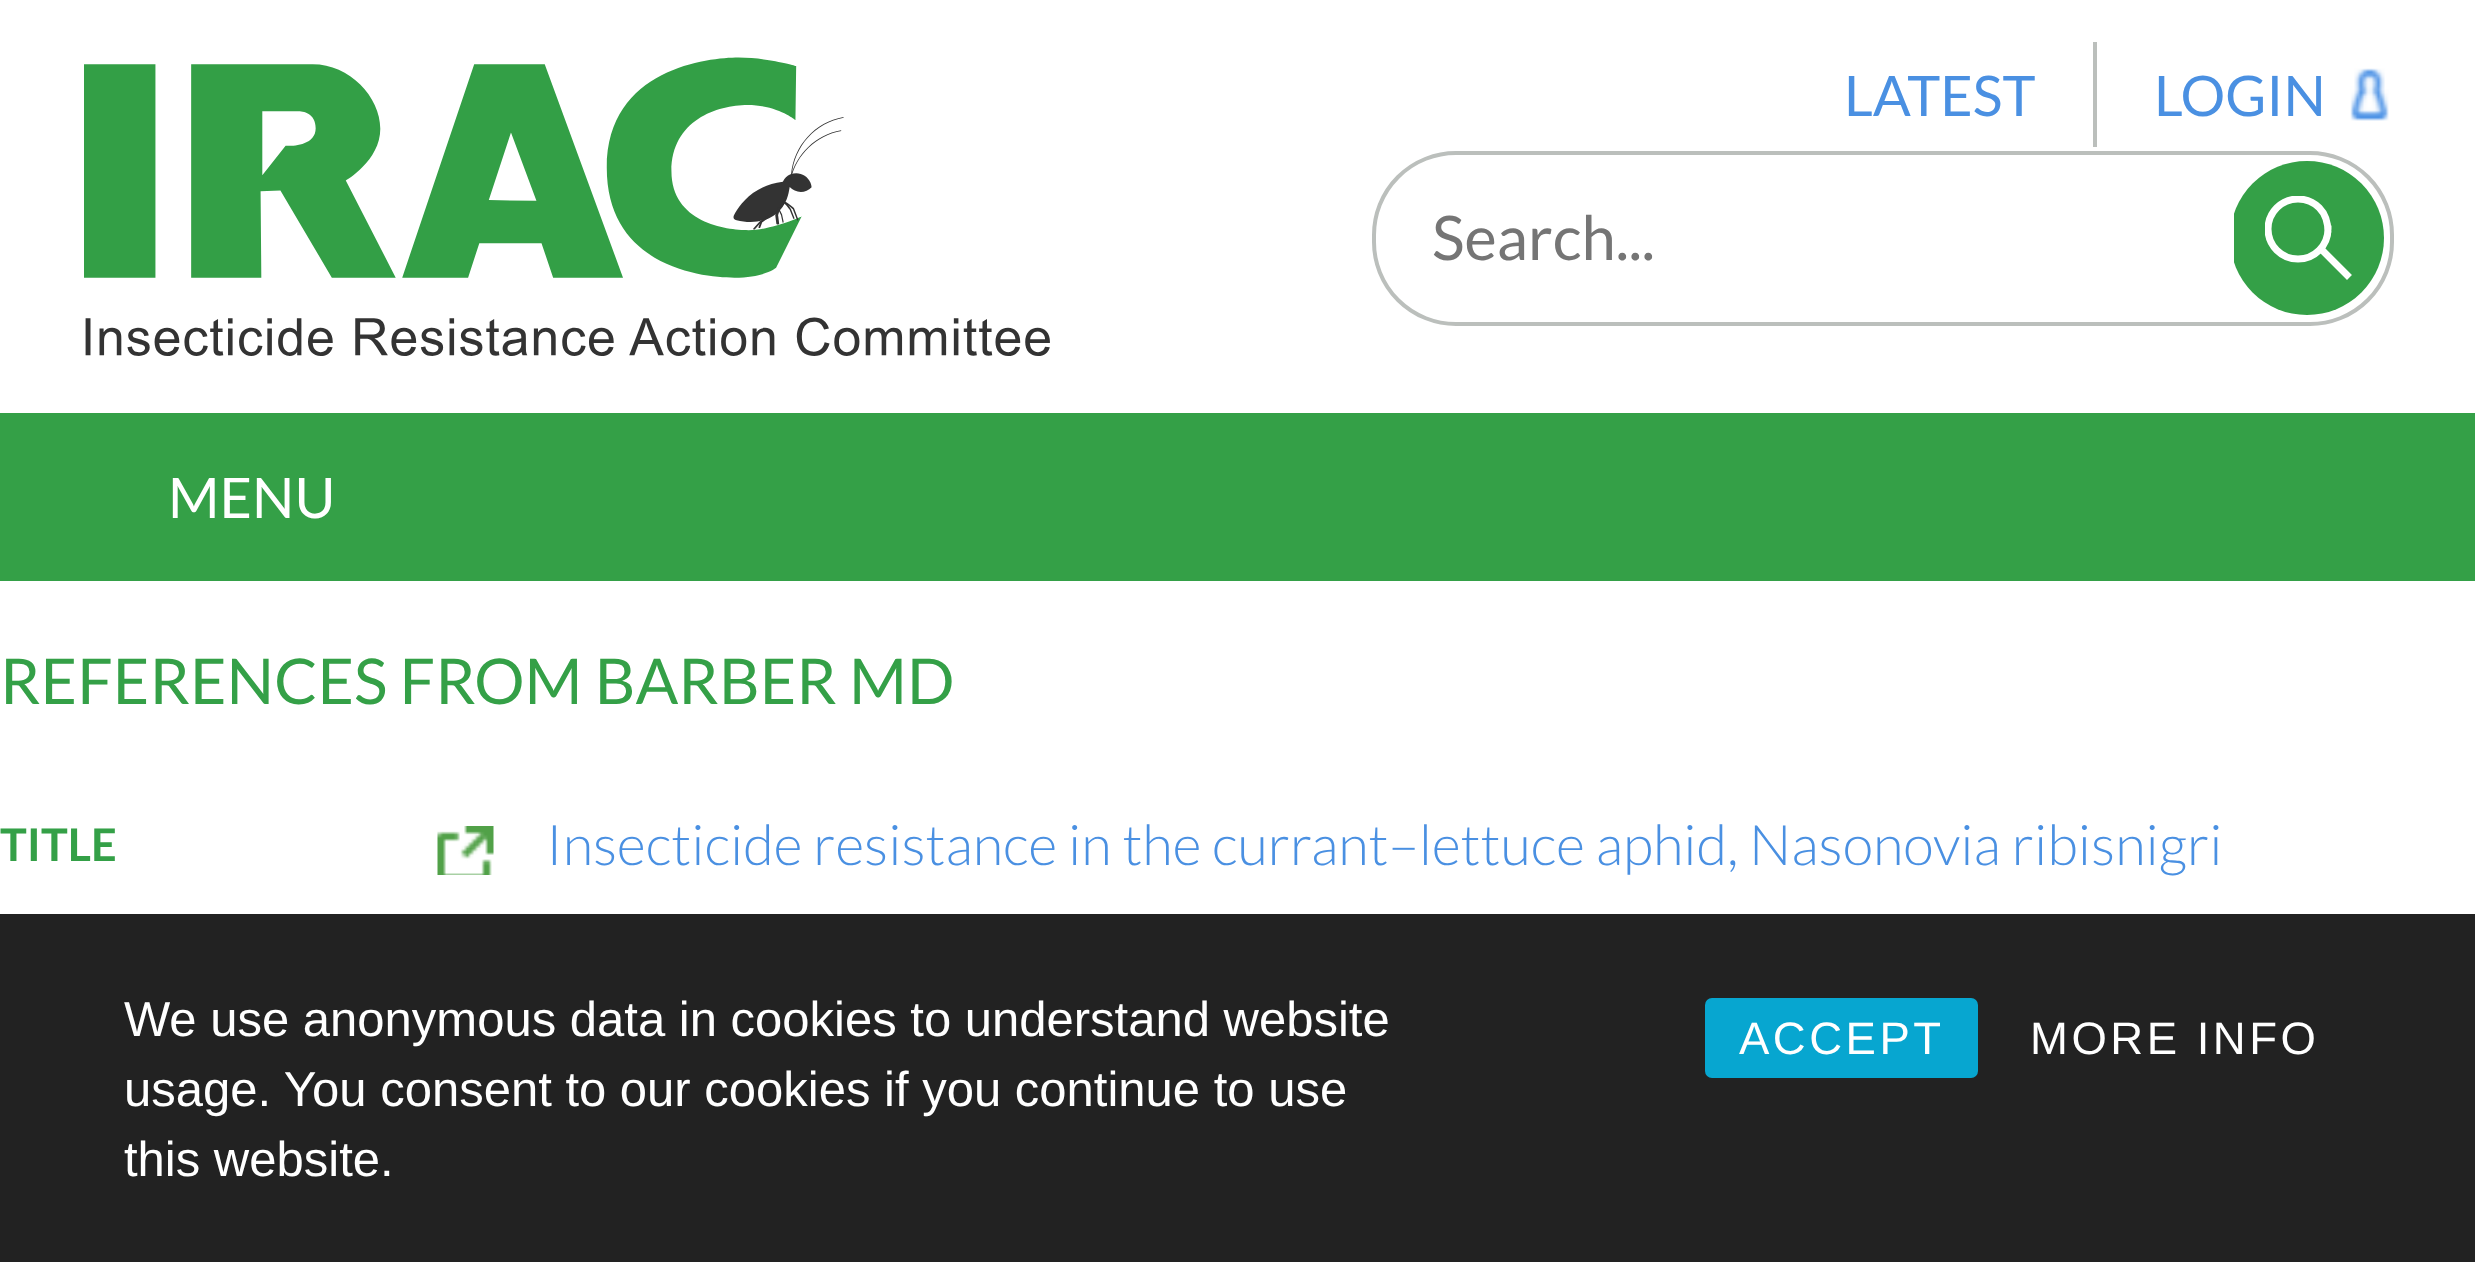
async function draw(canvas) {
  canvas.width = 2475
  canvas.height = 1262
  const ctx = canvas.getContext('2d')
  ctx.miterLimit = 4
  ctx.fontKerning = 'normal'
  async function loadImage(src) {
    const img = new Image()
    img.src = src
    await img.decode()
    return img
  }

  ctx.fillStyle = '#fff'
  ctx.fillRect(0, 0, 2475, 1262)
  ctx.drawImage(await loadImage('image0.png'), 84, 57, 966, 299)
  ctx.font = '56px Lato'
  ctx.fillStyle = '#4a90e2'
  ctx.fillText('LATEST', 1844, 116)
  ctx.fillStyle = '#bbbfbc'
  ctx.fillRect(2093, 42, 4, 105)
  ctx.fillStyle = '#4a90e2'
  ctx.fillText('LOGIN', 2154, 116)
  ctx.drawImage(await loadImage('image1.png'), 2350, 68, 39, 53)
  ctx.beginPath()
  ctx.roundRect(1374, 153, 1018, 171, 82)
  ctx.strokeStyle = '#bbbfbc'
  ctx.lineWidth = 4
  ctx.stroke()
  ctx.font = '61.5px Lato'
  ctx.fillStyle = '#757575'
  ctx.fillText('Search...', 1432, 260)
  ctx.fillStyle = '#34a047'
  ctx.beginPath()
  ctx.arc(2307, 238, 77, 0, 2 * Math.PI)
  ctx.fill()
  ctx.beginPath()
  ctx.moveTo(2322, 250)
  ctx.lineTo(2347, 275)
  ctx.strokeStyle = '#fff'
  ctx.lineWidth = 7
  ctx.lineCap = 'square'
  ctx.stroke()
  ctx.save()
  ctx.beginPath()
  ctx.rect(2265, 196, 87, 84)
  ctx.clip()
  ctx.beginPath()
  ctx.arc(2298, 229, 30, 0, 2 * Math.PI)
  ctx.stroke()
  ctx.restore()
  ctx.fillStyle = '#fff'
  ctx.fillRect(2230, 213, 4, 50)
  ctx.fillStyle = '#34a047'
  ctx.fillRect(0, 413, 2475, 168)
  ctx.font = '56px Lato'
  ctx.fillStyle = '#fff'
  ctx.fillText('MENU', 168, 518)
  ctx.font = '63px Lato'
  ctx.fillStyle = '#34a047'
  ctx.fillText('REFERENCES FROM BARBER MD', 0, 704)
  ctx.font = 'bold 45px Lato'
  ctx.fillText('TITLE', 0, 861)
  ctx.drawImage(await loadImage('image2.png'), 437, 826, 57, 49)
  ctx.font = '300 56px Lato'
  ctx.fillStyle = '#4a90e2'
  ctx.fillText('Insecticide resistance in the currant–lettuce aphid, Nasonovia ribisnigri', 546, 865)
  ctx.fillStyle = '#222'
  ctx.fillRect(0, 914, 2475, 348)
  ctx.font = '49px Liberation Sans'
  ctx.fillStyle = '#fff'
  ctx.fillText('We use anonymous data in cookies to understand website', 124, 1036)
  ctx.fillText('usage. You consent to our cookies if you continue to use', 124, 1106)
  ctx.fillText('this website.', 124, 1176)
  ctx.fillStyle = '#07a6d0'
  ctx.beginPath()
  ctx.roundRect(1705, 998, 273, 80, 7)
  ctx.fill()
  ctx.letterSpacing = '3.5px'
  ctx.font = '45.5px Liberation Sans'
  ctx.fillStyle = '#fff'
  ctx.fillText('ACCEPT', 1739, 1054)
  ctx.fillText('MORE INFO', 2030, 1054)
}

draw(document.querySelector('canvas'))
